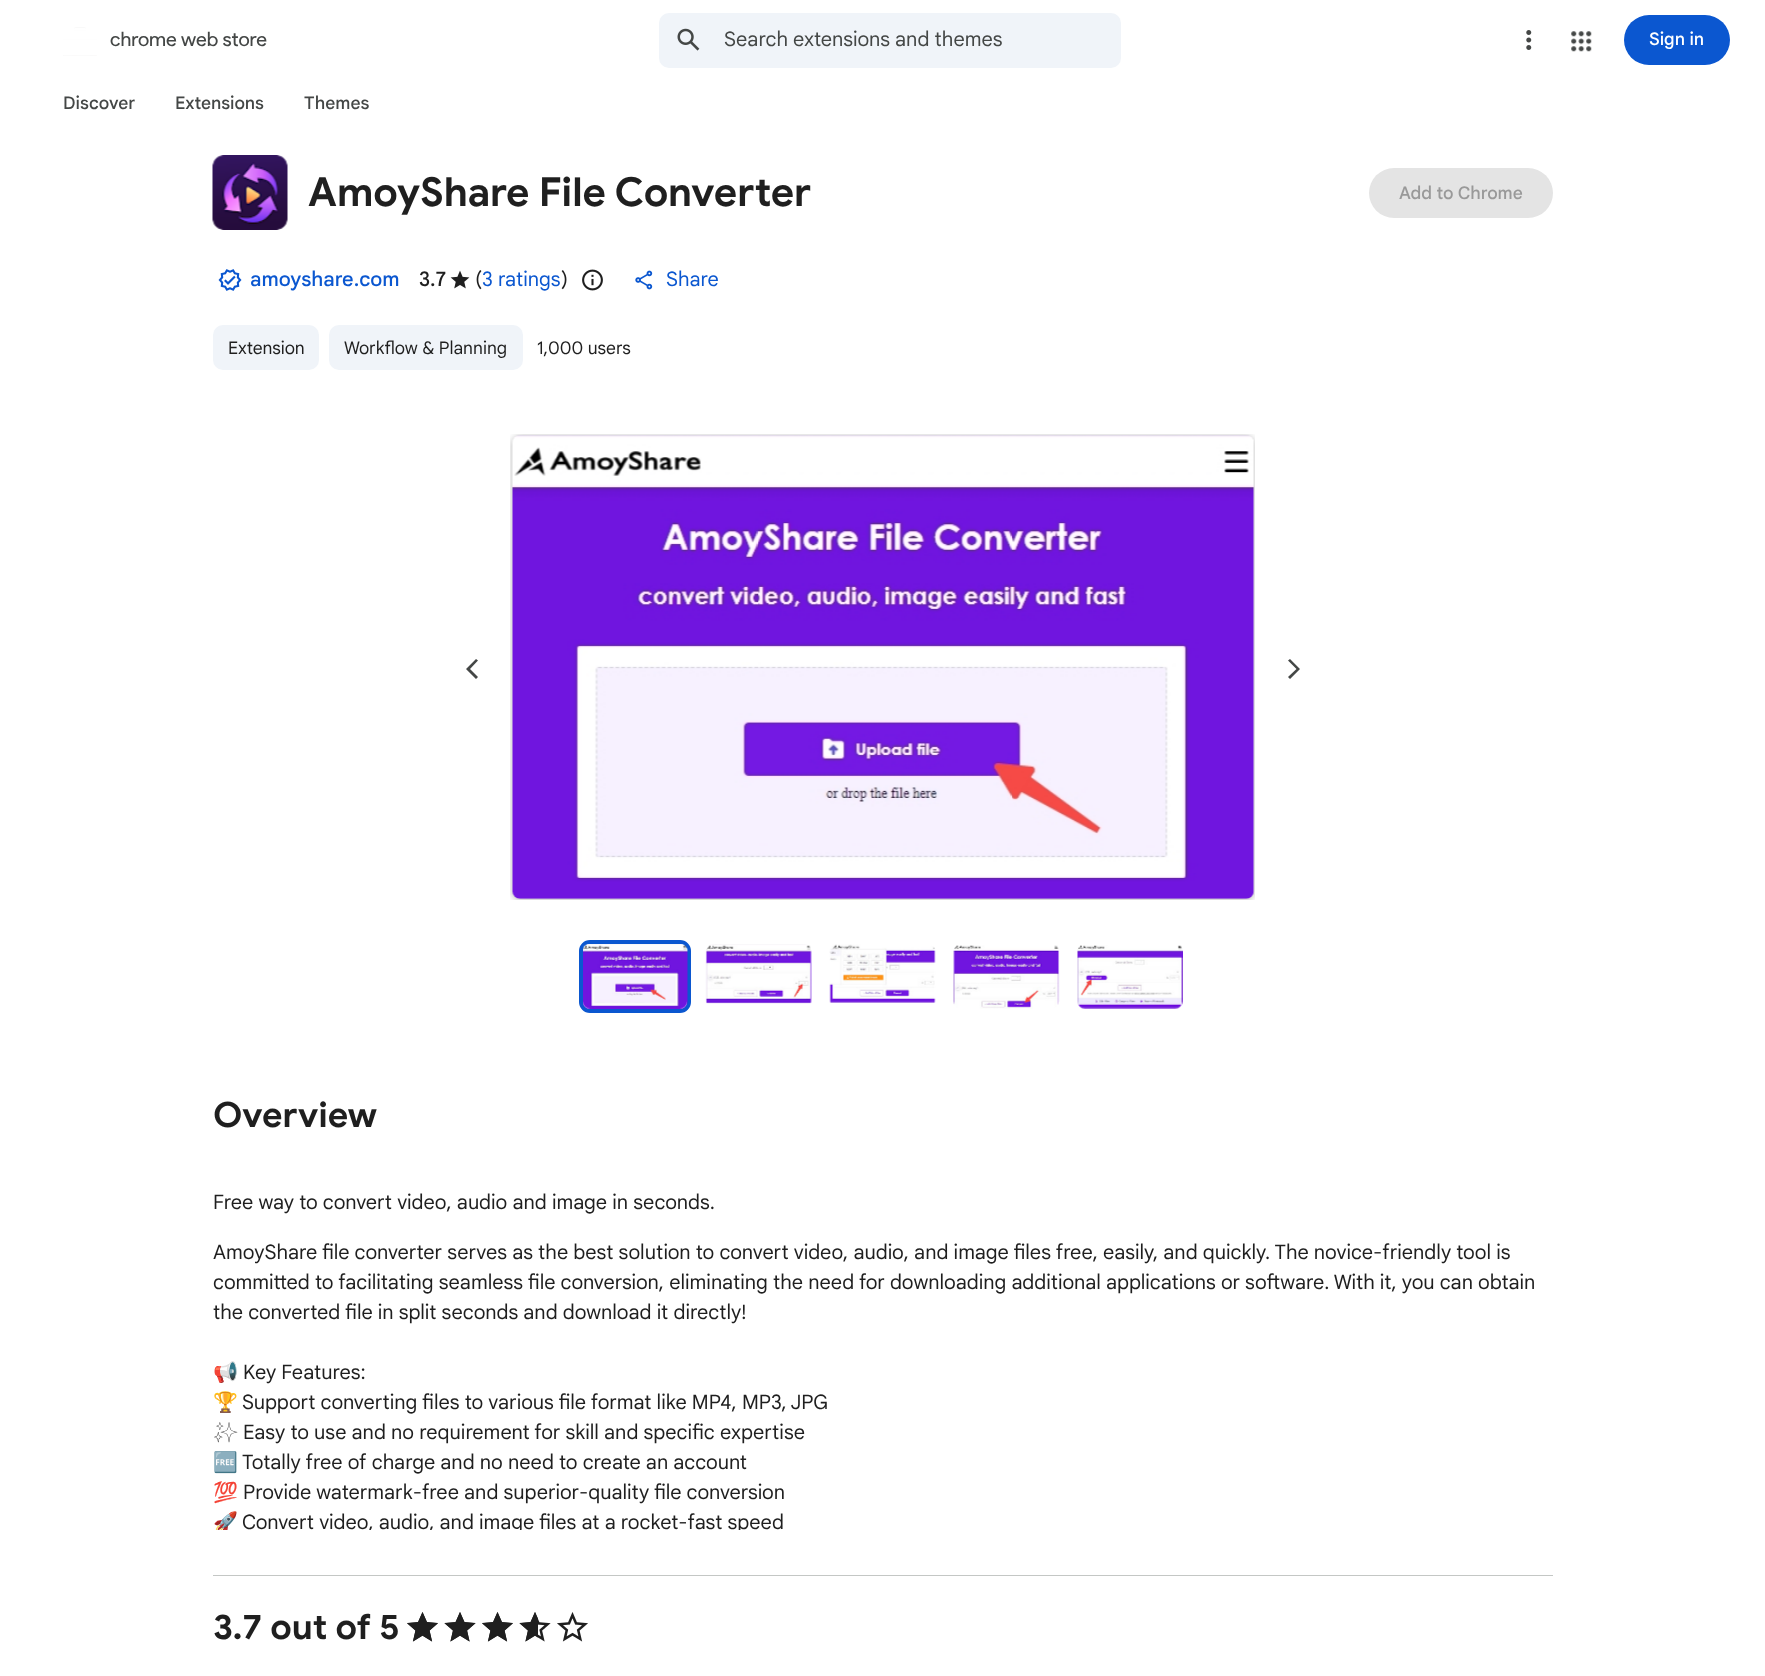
async function draw(canvas) {
  canvas.width = 1765
  canvas.height = 1676
  const ctx = canvas.getContext('2d')
  ctx.miterLimit = 4
  ctx.fontKerning = 'normal'
  async function loadImage(src) {
    const img = new Image()
    img.src = src
    await img.decode()
    return img
  }

  ctx.fillStyle = '#fff'
  ctx.fillRect(0, 0, 1765, 1676)
  ctx.drawImage(await loadImage('image0.png'), 63, 27, 34, 29)
  ctx.font = '20px Product Sans'
  ctx.fillStyle = '#444746'
  ctx.fillText('chrome web store', 110, 46)
  ctx.fillStyle = '#f0f4f9'
  ctx.beginPath()
  ctx.roundRect(659, 13, 462, 55, 10)
  ctx.fill()
  ctx.drawImage(await loadImage('image1.png'), 677, 28, 23, 23)
  ctx.font = '20px Google Sans'
  ctx.fillStyle = '#444746'
  ctx.fillText('Search extensions and themes', 724, 46)
  ctx.drawImage(await loadImage('image2.png'), 1526, 30, 6, 20)
  ctx.drawImage(await loadImage('image3.png'), 1571, 31, 21, 21)
  ctx.fillStyle = '#0b57d0'
  ctx.beginPath()
  ctx.roundRect(1624, 15, 106, 50, 25)
  ctx.fill()
  ctx.font = '500 17.5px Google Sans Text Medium'
  ctx.fillStyle = '#fff'
  ctx.fillText('Sign in', 1649, 45)
  ctx.fillStyle = '#444746'
  ctx.fillText('Discover', 63, 109)
  ctx.fillText('Extensions', 175, 109)
  ctx.fillText('Themes', 304, 109)
  ctx.drawImage(await loadImage('image4.png'), 212, 155, 76, 75)
  ctx.font = 'bold 40px Google Sans'
  ctx.fillStyle = '#1f1f1f'
  ctx.fillText('AmoyShare File Converter', 308, 206)
  ctx.fillStyle = '#e4e4e4'
  ctx.beginPath()
  ctx.roundRect(1369, 168, 184, 50, 25)
  ctx.fill()
  ctx.font = '500 17.5px Google Sans Text Medium'
  ctx.fillStyle = '#999'
  ctx.fillText('Add to Chrome', 1399, 199)
  ctx.drawImage(await loadImage('image5.png'), 218, 269, 24, 22)
  ctx.font = '500 20px Google Sans'
  ctx.fillStyle = '#0b57d0'
  ctx.fillText('amoyshare.com', 250, 286)
  ctx.fillStyle = '#1f1f1f'
  ctx.fillText('3.7', 419, 286)
  ctx.drawImage(await loadImage('image6.png'), 450, 270, 20, 19)
  ctx.font = '20px Google Sans'
  ctx.fillText('(', 475, 286)
  ctx.fillStyle = '#0b57d0'
  ctx.fillText('3 ratings', 482, 286)
  ctx.fillStyle = '#1f1f1f'
  ctx.fillText(')', 561, 286)
  ctx.drawImage(await loadImage('image7.png'), 582, 269, 21, 22)
  ctx.drawImage(await loadImage('image8.png'), 635, 270, 18, 20)
  ctx.font = '20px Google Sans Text'
  ctx.fillStyle = '#0b57d0'
  ctx.fillText('Share', 666, 286)
  ctx.fillStyle = '#f0f4f9'
  ctx.beginPath()
  ctx.roundRect(213, 325, 106, 45, 10)
  ctx.fill()
  ctx.font = '17.5px Google Sans'
  ctx.fillStyle = '#1f1f1f'
  ctx.fillText('Extension', 228, 354)
  ctx.fillStyle = '#f0f4f9'
  ctx.beginPath()
  ctx.roundRect(329, 325, 194, 45, 10)
  ctx.fill()
  ctx.fillStyle = '#1f1f1f'
  ctx.fillText('Workflow & Planning', 344, 354)
  ctx.fillText('1,000 users', 537, 354)
  ctx.fillStyle = '#444746'
  ctx.beginPath()
  ctx.moveTo(478, 660.5)
  ctx.lineTo(476, 659)
  ctx.lineTo(466, 669)
  ctx.lineTo(476, 679)
  ctx.lineTo(478, 677)
  ctx.lineTo(470, 669)
  ctx.fill()
  ctx.drawImage(await loadImage('image9.png'), 510, 434, 745, 466)
  ctx.beginPath()
  ctx.moveTo(1288, 677)
  ctx.lineTo(1290, 679)
  ctx.lineTo(1300, 669)
  ctx.lineTo(1290, 659)
  ctx.lineTo(1288, 660.5)
  ctx.lineTo(1296.5, 669)
  ctx.fill()
  ctx.beginPath()
  ctx.roundRect(581, 942, 108, 69, 9)
  ctx.strokeStyle = '#0b57d0'
  ctx.lineWidth = 4
  ctx.stroke()
  ctx.drawImage(await loadImage('image10.png'), 583, 944, 105, 65)
  ctx.drawImage(await loadImage('image11.png'), 705, 944, 107, 60)
  ctx.drawImage(await loadImage('image12.png'), 829, 944, 107, 59)
  ctx.drawImage(await loadImage('image13.png'), 953, 945, 107, 64)
  ctx.drawImage(await loadImage('image14.png'), 1077, 945, 106, 64)
  ctx.fillStyle = '#c4c7c5'
  ctx.fillRect(213, 1575, 1340, 1)
  ctx.font = 'bold 35px Google Sans'
  ctx.fillStyle = '#1f1f1f'
  ctx.fillText('Overview', 213, 1127)
  ctx.font = '20px Google Sans'
  ctx.fillText('Free way to convert video, audio and image in seconds.', 213, 1209)
  ctx.fillText('AmoyShare file converter serves as the best solution to convert video, audio, and image files free, easily, and quickly. The novice-friendly tool is', 213, 1259)
  ctx.fillText('committed to facilitating seamless file conversion, eliminating the need for downloading additional applications or software. With it, you can obtain', 213, 1289)
  ctx.fillText('the converted file in split seconds and download it directly!', 213, 1319)
  ctx.save()
  ctx.beginPath()
  ctx.rect(213, 1168, 1340, 362)
  ctx.clip()
  ctx.font = '20px Noto Color Emoji'
  ctx.fillText('📢', 213, 1379)
  ctx.restore()
  ctx.fillText('Key Features:', 243, 1379)
  ctx.save()
  ctx.beginPath()
  ctx.rect(213, 1168, 1340, 362)
  ctx.clip()
  ctx.font = '20px Noto Color Emoji'
  ctx.fillText('🏆', 213, 1409)
  ctx.restore()
  ctx.fillText('Support converting files to various file format like MP4, MP3, JPG', 242, 1409)
  ctx.font = '300 20px Noto Emoji'
  ctx.fillText('✨', 213, 1439)
  ctx.font = '20px Google Sans'
  ctx.fillText('Easy to use and no requirement for skill and specific expertise', 243, 1439)
  ctx.save()
  ctx.beginPath()
  ctx.rect(213, 1168, 1340, 362)
  ctx.clip()
  ctx.font = '20px Noto Color Emoji'
  ctx.fillText('🆓', 213, 1469)
  ctx.restore()
  ctx.fillText('Totally free of charge and no need to create an account', 242, 1469)
  ctx.save()
  ctx.beginPath()
  ctx.rect(213, 1168, 1340, 362)
  ctx.clip()
  ctx.font = '20px Noto Color Emoji'
  ctx.fillText('💯', 213, 1499)
  ctx.restore()
  ctx.fillText('Provide watermark-free and superior-quality file conversion', 243, 1499)
  ctx.save()
  ctx.beginPath()
  ctx.rect(213, 1168, 1340, 362)
  ctx.clip()
  ctx.font = '20px Noto Color Emoji'
  ctx.fillText('🚀', 213, 1529)
  ctx.font = '20px Google Sans'
  ctx.fillText('Convert video, audio, and image files at a rocket-fast speed', 242, 1529)
  ctx.restore()
  ctx.font = 'bold 35px Google Sans'
  ctx.fillText('3.7 out of 5', 213, 1639)
  ctx.drawImage(await loadImage('image15.png'), 407, 1612, 31, 30)
  ctx.drawImage(await loadImage('image16.png'), 444, 1612, 32, 30)
  ctx.drawImage(await loadImage('image15.png'), 482, 1612, 31, 30)
  ctx.drawImage(await loadImage('image16.png'), 519, 1612, 32, 30)
  ctx.drawImage(await loadImage('image15.png'), 557, 1612, 31, 30)
  ctx.beginPath()
  ctx.moveTo(422.5, 1635.5)
  ctx.lineTo(432, 1641.5)
  ctx.lineTo(429.5, 1630.5)
  ctx.lineTo(438, 1623)
  ctx.lineTo(427, 1622)
  ctx.lineTo(422.5, 1612)
  ctx.lineTo(418, 1622)
  ctx.lineTo(407, 1623)
  ctx.lineTo(415.5, 1630.5)
  ctx.lineTo(413, 1641.5)
  ctx.closePath()
  ctx.fill()
  ctx.beginPath()
  ctx.moveTo(460, 1635.5)
  ctx.lineTo(469.5, 1641.5)
  ctx.lineTo(467, 1630.5)
  ctx.lineTo(475.5, 1623)
  ctx.lineTo(464.5, 1622)
  ctx.lineTo(460, 1612)
  ctx.lineTo(455.5, 1622)
  ctx.lineTo(444.5, 1623)
  ctx.lineTo(453, 1630.5)
  ctx.lineTo(450.5, 1641.5)
  ctx.closePath()
  ctx.fill()
  ctx.beginPath()
  ctx.moveTo(497.5, 1635.5)
  ctx.lineTo(507, 1641.5)
  ctx.lineTo(504.5, 1630.5)
  ctx.lineTo(513, 1623)
  ctx.lineTo(502, 1622)
  ctx.lineTo(497.5, 1612)
  ctx.lineTo(493, 1622)
  ctx.lineTo(482, 1623)
  ctx.lineTo(490.5, 1630.5)
  ctx.lineTo(488, 1641.5)
  ctx.closePath()
  ctx.fill()
  ctx.save()
  ctx.beginPath()
  ctx.rect(516, 1609, 22, 37)
  ctx.clip()
  ctx.beginPath()
  ctx.moveTo(535, 1635.5)
  ctx.lineTo(544.5, 1641.5)
  ctx.lineTo(542, 1630.5)
  ctx.lineTo(550.5, 1623)
  ctx.lineTo(539.5, 1622)
  ctx.lineTo(535, 1612)
  ctx.lineTo(530.5, 1622)
  ctx.lineTo(519.5, 1623)
  ctx.lineTo(528, 1630.5)
  ctx.lineTo(525.5, 1641.5)
  ctx.closePath()
  ctx.fill()
  ctx.restore()
}

draw(document.querySelector('canvas'))
